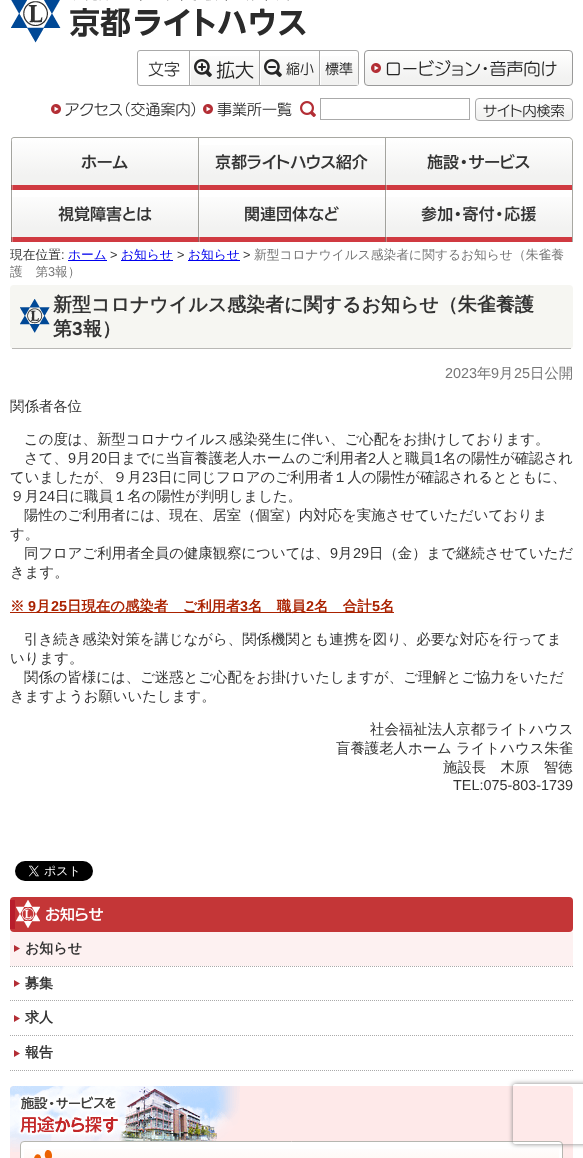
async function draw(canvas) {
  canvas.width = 583
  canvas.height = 1158
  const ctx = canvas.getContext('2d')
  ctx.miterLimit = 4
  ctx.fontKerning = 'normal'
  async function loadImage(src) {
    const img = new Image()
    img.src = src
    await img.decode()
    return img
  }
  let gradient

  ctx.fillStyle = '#fff'
  ctx.fillRect(0, 0, 583, 1158)
  ctx.drawImage(await loadImage('image0.png'), 11, 0, 295, 43)
  ctx.beginPath()
  ctx.roundRect(137.5, 50.5, 221, 35, 2.5)
  ctx.strokeStyle = '#aaa'
  ctx.stroke()
  ctx.font = '500 16px "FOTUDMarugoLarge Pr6"'
  ctx.fillStyle = '#333'
  ctx.fillText('文字', 148, 75)
  gradient = ctx.createLinearGradient(225, 51, 225, 85)
  gradient.addColorStop(0, '#fff')
  gradient.addColorStop(0.8, '#f2f2f1')
  ctx.fillStyle = gradient
  ctx.fillRect(191, 56, 68, 29)
  ctx.fillStyle = '#aaa'
  ctx.fillRect(189, 51, 1, 34)
  ctx.drawImage(await loadImage('image1.png'), 194, 59, 18, 18)
  ctx.fillStyle = '#252525'
  ctx.beginPath()
  ctx.roundRect(198, 66, 8, 2, 1)
  ctx.fill()
  ctx.beginPath()
  ctx.roundRect(201, 63, 2, 8, 1)
  ctx.fill()
  ctx.font = '500 19px "FOTUDMarugoLarge Pr6"'
  ctx.fillText('拡大', 216, 77)
  gradient = ctx.createLinearGradient(290, 51, 290, 85)
  gradient.addColorStop(0, '#fff')
  gradient.addColorStop(0.8, '#f2f2f1')
  ctx.fillStyle = gradient
  ctx.fillRect(261, 56, 58, 29)
  ctx.fillStyle = '#aaa'
  ctx.fillRect(259, 51, 1, 34)
  ctx.drawImage(await loadImage('image1.png'), 264, 59, 18, 18)
  ctx.fillStyle = '#252525'
  ctx.beginPath()
  ctx.roundRect(268, 66, 8, 2, 1)
  ctx.fill()
  ctx.font = '500 14px "FOTUDMarugoLarge Pr6"'
  ctx.fillText('縮小', 286, 74)
  gradient = ctx.createLinearGradient(339, 51, 339, 85)
  gradient.addColorStop(0, '#f2f2f100')
  gradient.addColorStop(0.8, '#f2f2f1')
  ctx.fillStyle = gradient
  ctx.fillRect(321, 56, 37, 29)
  ctx.fillStyle = '#aaa'
  ctx.fillRect(319, 51, 1, 34)
  ctx.fillStyle = '#252525'
  ctx.fillText('標準', 325, 74)
  ctx.save()
  ctx.beginPath()
  ctx.roundRect(364, 50, 209, 36, 4)
  ctx.clip()
  gradient = ctx.createLinearGradient(469, 51, 469, 85)
  gradient.addColorStop(0, '#fff')
  gradient.addColorStop(0.8, '#f2f2f1')
  ctx.fillStyle = gradient
  ctx.fillRect(364, 51, 209, 34)
  ctx.restore()
  ctx.beginPath()
  ctx.roundRect(364.5, 50.5, 208, 35, 3.5)
  ctx.strokeStyle = '#999'
  ctx.stroke()
  ctx.drawImage(await loadImage('image2.png'), 371, 63, 10, 10)
  ctx.font = '500 17px "FOTUDMarugoLarge Pr6"'
  ctx.fillText('ロービジョン・音声向け', 385, 75)
  ctx.drawImage(await loadImage('image3.png'), 51, 104, 10, 10)
  ctx.font = '500 15px "FOTUDMarugoLarge Pr6"'
  ctx.fillStyle = '#333'
  ctx.fillText('アクセス（交通案内）', 65, 115)
  ctx.drawImage(await loadImage('image3.png'), 203, 104, 10, 10)
  ctx.fillText('事業所一覧', 217, 115)
  ctx.drawImage(await loadImage('image4.png'), 300, 101, 16, 16)
  ctx.strokeStyle = '#aaa'
  ctx.strokeRect(320.5, 98.5, 149, 21)
  ctx.save()
  ctx.beginPath()
  ctx.roundRect(475, 98, 98, 23, 4)
  ctx.clip()
  gradient = ctx.createLinearGradient(524, 99, 524, 120)
  gradient.addColorStop(0, '#fff')
  gradient.addColorStop(0.8, '#f2f2f1')
  ctx.fillStyle = gradient
  ctx.fillRect(475, 99, 98, 21)
  ctx.restore()
  ctx.beginPath()
  ctx.roundRect(475.5, 98.5, 97, 22, 3.5)
  ctx.stroke()
  ctx.font = '500 14px "FOTUDMarugoLarge Pr6"'
  ctx.fillStyle = '#252525'
  ctx.fillText('サイト内検索', 483, 116)
  ctx.fillStyle = '#a8a8a2'
  ctx.beginPath()
  ctx.moveTo(15, 137)
  ctx.lineTo(568, 137)
  ctx.bezierCurveTo(571, 137, 573, 139, 573, 142)
  ctx.lineTo(573, 242)
  ctx.lineTo(10, 242)
  ctx.lineTo(10, 142)
  ctx.bezierCurveTo(10, 139, 12, 137, 15, 137)
  ctx.closePath()
  ctx.moveTo(15, 138)
  ctx.lineTo(568, 138)
  ctx.bezierCurveTo(570, 138, 572, 140, 572, 142)
  ctx.lineTo(572, 242)
  ctx.lineTo(11, 242)
  ctx.lineTo(11, 142)
  ctx.bezierCurveTo(11, 140, 13, 138, 15, 138)
  ctx.closePath()
  ctx.fill('evenodd')
  ctx.fillStyle = '#fff'
  ctx.fillRect(10, 139, 1, 103)
  ctx.beginPath()
  ctx.roundRect(11, 138, 187, 52, [4, 0, 0, 0])
  ctx.fill()
  gradient = ctx.createLinearGradient(105, 138, 105, 185)
  gradient.addColorStop(0, '#f2f2f100')
  gradient.addColorStop(0.8, '#f2f2f1')
  ctx.fillStyle = gradient
  ctx.fillRect(11, 139, 187, 46)
  ctx.fillStyle = '#d03a41'
  ctx.fillRect(11, 185, 374, 5)
  ctx.drawImage(await loadImage('image5.png'), 11, 138, 2, 52)
  ctx.font = '600 16px "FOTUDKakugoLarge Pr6"'
  ctx.fillStyle = '#333'
  ctx.fillText('ホーム', 81, 168)
  gradient = ctx.createLinearGradient(292, 138, 292, 185)
  gradient.addColorStop(0, '#fff')
  gradient.addColorStop(0.8, '#f2f2f1')
  ctx.fillStyle = gradient
  ctx.fillRect(198, 145, 187, 40)
  ctx.drawImage(await loadImage('image6.png'), 198, 138, 2, 52)
  ctx.fillStyle = '#333'
  ctx.fillText('京都ライトハウス紹介', 215, 168)
  ctx.fillStyle = '#fff'
  ctx.beginPath()
  ctx.roundRect(385, 138, 187, 52, [0, 4, 0, 0])
  ctx.fill()
  gradient = ctx.createLinearGradient(479, 138, 479, 185)
  gradient.addColorStop(0, '#f2f2f100')
  gradient.addColorStop(0.8, '#f2f2f1')
  ctx.fillStyle = gradient
  ctx.fillRect(385, 139, 187, 46)
  ctx.fillStyle = '#d03a41'
  ctx.fillRect(385, 185, 187, 5)
  ctx.drawImage(await loadImage('image7.png'), 385, 138, 2, 52)
  ctx.fillStyle = '#333'
  ctx.fillText('施設・サービス', 427, 168)
  gradient = ctx.createLinearGradient(105, 190, 105, 237)
  gradient.addColorStop(0, '#fff')
  gradient.addColorStop(0.8, '#f2f2f1')
  ctx.fillStyle = gradient
  ctx.fillRect(11, 197, 187, 40)
  ctx.fillStyle = '#d03a41'
  ctx.fillRect(11, 237, 561, 5)
  ctx.drawImage(await loadImage('image6.png'), 11, 190, 2, 52)
  ctx.fillStyle = '#333'
  ctx.fillText('視覚障害とは', 58, 220)
  gradient = ctx.createLinearGradient(292, 190, 292, 237)
  gradient.addColorStop(0, '#fff')
  gradient.addColorStop(0.8, '#f2f2f1')
  ctx.fillStyle = gradient
  ctx.fillRect(198, 197, 187, 40)
  ctx.drawImage(await loadImage('image6.png'), 198, 190, 2, 52)
  ctx.fillStyle = '#333'
  ctx.fillText('関連団体など', 244, 220)
  gradient = ctx.createLinearGradient(479, 190, 479, 237)
  gradient.addColorStop(0, '#fff')
  gradient.addColorStop(0.8, '#f2f2f1')
  ctx.fillStyle = gradient
  ctx.fillRect(385, 197, 187, 40)
  ctx.drawImage(await loadImage('image6.png'), 385, 190, 2, 52)
  ctx.fillStyle = '#333'
  ctx.fillText('参加・寄付・応援', 421, 220)
  ctx.font = '500 12.75px WenQuanYi Zen Hei'
  ctx.fillText('現在位置', 10, 259)
  ctx.font = '12.75px Liberation Sans'
  ctx.fillText(':', 61, 259)
  ctx.fillStyle = '#00e'
  ctx.fillRect(68, 260, 39, 1)
  ctx.font = '500 12.75px WenQuanYi Zen Hei'
  ctx.fillText('ホーム', 68, 259)
  ctx.font = '12.75px Liberation Sans'
  ctx.fillStyle = '#333'
  ctx.fillText('>', 110, 259)
  ctx.fillStyle = '#00e'
  ctx.fillRect(121, 260, 52, 1)
  ctx.font = '500 12.75px WenQuanYi Zen Hei'
  ctx.fillText('お知らせ', 121, 259)
  ctx.font = '12.75px Liberation Sans'
  ctx.fillStyle = '#333'
  ctx.fillText('>', 177, 259)
  ctx.fillStyle = '#00e'
  ctx.fillRect(188, 260, 52, 1)
  ctx.font = '500 12.75px WenQuanYi Zen Hei'
  ctx.fillText('お知らせ', 188, 259)
  ctx.font = '12.75px Liberation Sans'
  ctx.fillStyle = '#333'
  ctx.fillText('>', 243, 259)
  ctx.font = '500 12.75px WenQuanYi Zen Hei'
  ctx.fillStyle = '#767676'
  ctx.fillText('新型コロナウイルス感染者に関するお知らせ（朱雀養', 254, 259)
  ctx.fillText('護　第', 10, 276)
  ctx.font = '12.75px Liberation Sans'
  ctx.fillText('3', 48, 276)
  ctx.font = '500 12.75px WenQuanYi Zen Hei'
  ctx.fillText('報）', 55, 276)
  ctx.fillStyle = '#f6f6f2'
  ctx.beginPath()
  ctx.roundRect(10, 285, 563, 64, 4)
  ctx.fill()
  ctx.drawImage(await loadImage('image8.png'), 20, 299, 30, 34)
  ctx.fillStyle = '#b9b8b5'
  ctx.fillRect(12, 348, 559, 1)
  ctx.font = 'bold 19px WenQuanYi Zen Hei'
  ctx.fillStyle = '#333'
  ctx.fillText('新型コロナウイルス感染者に関するお知らせ（朱雀養護', 53, 311)
  ctx.fillText('第', 53, 335)
  ctx.font = 'bold 19px Liberation Sans'
  ctx.fillText('3', 72, 335)
  ctx.font = 'bold 19px WenQuanYi Zen Hei'
  ctx.fillText('報）', 83, 335)
  ctx.font = '14.4px Liberation Sans'
  ctx.fillStyle = '#767676'
  ctx.fillText('2023', 445, 378)
  ctx.font = '500 14.4px WenQuanYi Zen Hei'
  ctx.fillText('年', 477, 378)
  ctx.font = '14.4px Liberation Sans'
  ctx.fillText('9', 491, 378)
  ctx.font = '500 14.4px WenQuanYi Zen Hei'
  ctx.fillText('月', 499, 378)
  ctx.font = '14.4px Liberation Sans'
  ctx.fillText('25', 514, 378)
  ctx.font = '500 14.4px WenQuanYi Zen Hei'
  ctx.fillText('日公開', 530, 378)
  ctx.fillStyle = '#333'
  ctx.fillText('関係者各位', 10, 411)
  ctx.fillText('この度は、新型コロナウイルス感染発生に伴い、ご心配をお掛けしております。', 24, 444)
  ctx.fillText('さて、', 24, 463)
  ctx.font = '14.4px Liberation Sans'
  ctx.fillText('9', 68, 463)
  ctx.font = '500 14.4px WenQuanYi Zen Hei'
  ctx.fillText('月', 76, 463)
  ctx.font = '14.4px Liberation Sans'
  ctx.fillText('20', 91, 463)
  ctx.font = '500 14.4px WenQuanYi Zen Hei'
  ctx.fillText('日までに当盲養護老人ホームのご利用者', 107, 463)
  ctx.font = '14.4px Liberation Sans'
  ctx.fillText('2', 368, 463)
  ctx.font = '500 14.4px WenQuanYi Zen Hei'
  ctx.fillText('人と職員', 376, 463)
  ctx.font = '14.4px Liberation Sans'
  ctx.fillText('1', 434, 463)
  ctx.font = '500 14.4px WenQuanYi Zen Hei'
  ctx.fillText('名の陽性が確認され', 442, 463)
  ctx.fillText('ていましたが、９月', 10, 482)
  ctx.font = '14.4px Liberation Sans'
  ctx.fillText('23', 142, 482)
  ctx.font = '500 14.4px WenQuanYi Zen Hei'
  ctx.fillText('日に同じフロアのご利用者１人の陽性が確認されるとともに、', 158, 482)
  ctx.fillText('９月', 10, 501)
  ctx.font = '14.4px Liberation Sans'
  ctx.fillText('24', 39, 501)
  ctx.font = '500 14.4px WenQuanYi Zen Hei'
  ctx.fillText('日に職員１名の陽性が判明しました。', 55, 501)
  ctx.fillText('陽性のご利用者には、現在、居室（個室）内対応を実施させていただいておりま', 24, 520)
  ctx.fillText('す。', 10, 539)
  ctx.fillText('同フロアご利用者全員の健康観察については、', 24, 558)
  ctx.font = '14.4px Liberation Sans'
  ctx.fillText('9', 330, 558)
  ctx.font = '500 14.4px WenQuanYi Zen Hei'
  ctx.fillText('月', 338, 558)
  ctx.font = '14.4px Liberation Sans'
  ctx.fillText('29', 353, 558)
  ctx.font = '500 14.4px WenQuanYi Zen Hei'
  ctx.fillText('日（金）まで継続させていただ', 369, 558)
  ctx.fillText('きます。', 10, 577)
  ctx.font = 'bold 14.4px WenQuanYi Zen Hei'
  ctx.fillStyle = '#a20'
  ctx.fillText('※', 10, 611)
  ctx.font = 'bold 14.4px Liberation Sans'
  ctx.fillText('9', 28, 611)
  ctx.fillRect(10, 612, 384, 1)
  ctx.font = 'bold 14.4px WenQuanYi Zen Hei'
  ctx.fillText('月', 36, 611)
  ctx.font = 'bold 14.4px Liberation Sans'
  ctx.fillText('25', 51, 611)
  ctx.font = 'bold 14.4px WenQuanYi Zen Hei'
  ctx.fillText('日現在の感染者　ご利用者', 67, 611)
  ctx.font = 'bold 14.4px Liberation Sans'
  ctx.fillText('3', 240, 611)
  ctx.font = 'bold 14.4px WenQuanYi Zen Hei'
  ctx.fillText('名　職員', 248, 611)
  ctx.font = 'bold 14.4px Liberation Sans'
  ctx.fillText('2', 306, 611)
  ctx.font = 'bold 14.4px WenQuanYi Zen Hei'
  ctx.fillText('名　合計', 314, 611)
  ctx.font = 'bold 14.4px Liberation Sans'
  ctx.fillText('5', 372, 611)
  ctx.font = 'bold 14.4px WenQuanYi Zen Hei'
  ctx.fillText('名', 380, 611)
  ctx.font = '500 14.4px WenQuanYi Zen Hei'
  ctx.fillStyle = '#333'
  ctx.fillText('引き続き感染対策を講じながら、関係機関とも連携を図り、必要な対応を行ってま', 24, 644)
  ctx.fillText('いります。', 10, 663)
  ctx.fillText('関係の皆様には、ご迷惑とご心配をお掛けいたしますが、ご理解とご協力をいただ', 24, 682)
  ctx.fillText('きますようお願いいたします。', 10, 701)
  ctx.fillText('社会福祉法人京都ライトハウス', 370, 734)
  ctx.fillText('盲養護老人ホーム ライトハウス朱雀', 336, 753)
  ctx.fillText('施設長　木原　智徳', 443, 772)
  ctx.font = '14.4px Liberation Sans'
  ctx.fillText('TEL:075-803-1739', 453, 790)
  ctx.drawImage(await loadImage('image9.png'), 15, 861, 78, 20)
  ctx.fillStyle = '#c43637'
  ctx.beginPath()
  ctx.roundRect(10, 897, 563, 35, 4)
  ctx.fill()
  ctx.drawImage(await loadImage('image10.png'), 16, 900, 24, 28)
  ctx.fillStyle = '#b81d2b'
  ctx.fillRect(10, 900, 5, 29)
  ctx.font = '600 15px "FOTUDKakugoLarge Pr6"'
  ctx.fillStyle = '#fff'
  ctx.fillText('お知らせ', 45, 920)
  ctx.beginPath()
  ctx.moveTo(10, 966.5)
  ctx.lineTo(573, 966.5)
  ctx.setLineDash([1, 1])
  ctx.stroke()
  ctx.fillStyle = '#fdf1f1'
  ctx.fillRect(10, 932, 563, 34)
  ctx.fillStyle = '#b32e35'
  ctx.beginPath()
  ctx.moveTo(14, 952)
  ctx.lineTo(14, 945)
  ctx.lineTo(20, 948.5)
  ctx.closePath()
  ctx.fill()
  ctx.font = 'bold 14px WenQuanYi Zen Hei'
  ctx.fillStyle = '#333'
  ctx.fillText('お知らせ', 25, 953)
  ctx.beginPath()
  ctx.moveTo(10, 1000.5)
  ctx.lineTo(573, 1000.5)
  ctx.stroke()
  ctx.fillStyle = '#b32e35'
  ctx.beginPath()
  ctx.moveTo(14, 987)
  ctx.lineTo(14, 980)
  ctx.lineTo(20, 983.5)
  ctx.closePath()
  ctx.fill()
  ctx.fillStyle = '#333'
  ctx.fillText('募集', 25, 988)
  ctx.beginPath()
  ctx.moveTo(10, 1035.5)
  ctx.lineTo(573, 1035.5)
  ctx.stroke()
  ctx.fillStyle = '#b32e35'
  ctx.beginPath()
  ctx.moveTo(14, 1022)
  ctx.lineTo(14, 1015)
  ctx.lineTo(20, 1018.5)
  ctx.closePath()
  ctx.fill()
  ctx.fillStyle = '#333'
  ctx.fillText('求人', 25, 1022)
  ctx.beginPath()
  ctx.moveTo(10, 1070.5)
  ctx.lineTo(573, 1070.5)
  ctx.stroke()
  ctx.fillStyle = '#b32e35'
  ctx.beginPath()
  ctx.moveTo(14, 1057)
  ctx.lineTo(14, 1050)
  ctx.lineTo(20, 1053.5)
  ctx.closePath()
  ctx.fill()
  ctx.fillStyle = '#333'
  ctx.fillText('報告', 25, 1057)
  ctx.fillStyle = '#fee9e9'
  ctx.beginPath()
  ctx.roundRect(10, 1086, 563, 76, 4)
  ctx.fill()
  ctx.drawImage(await loadImage('image11.png'), 10, 1086, 230, 66)
  ctx.fillStyle = '#fff'
  ctx.beginPath()
  ctx.roundRect(20.5, 1141.5, 542, 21, 3.5)
  ctx.fill()
  ctx.strokeStyle = '#b6b6b0'
  ctx.setLineDash([])
  ctx.stroke()
  gradient = ctx.createLinearGradient(292, 1145, 292, 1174)
  gradient.addColorStop(0, '#fff')
  gradient.addColorStop(1, '#fef3ec')
  ctx.fillStyle = gradient
  ctx.fillRect(24, 1149, 535, 9)
  ctx.drawImage(await loadImage('image12.png'), 34, 1150, 18, 8)
  ctx.save()
  ctx.beginPath()
  ctx.moveTo(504, 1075)
  ctx.lineTo(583, 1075)
  ctx.lineTo(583, 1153)
  ctx.lineTo(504, 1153)
  ctx.closePath()
  ctx.moveTo(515, 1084)
  ctx.lineTo(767, 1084)
  ctx.bezierCurveTo(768, 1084, 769, 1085, 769, 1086)
  ctx.lineTo(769, 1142)
  ctx.bezierCurveTo(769, 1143, 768, 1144, 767, 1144)
  ctx.lineTo(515, 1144)
  ctx.bezierCurveTo(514, 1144, 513, 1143, 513, 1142)
  ctx.lineTo(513, 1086)
  ctx.bezierCurveTo(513, 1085, 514, 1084, 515, 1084)
  ctx.closePath()
  ctx.clip('evenodd')
  ctx.fillStyle = '#808080'
  ctx.filter = 'blur(2.5px)'
  ctx.beginPath()
  ctx.roundRect(513, 1084, 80, 60, 2)
  ctx.fill()
  ctx.filter = 'none'
  ctx.restore()
}

draw(document.querySelector('canvas'))
